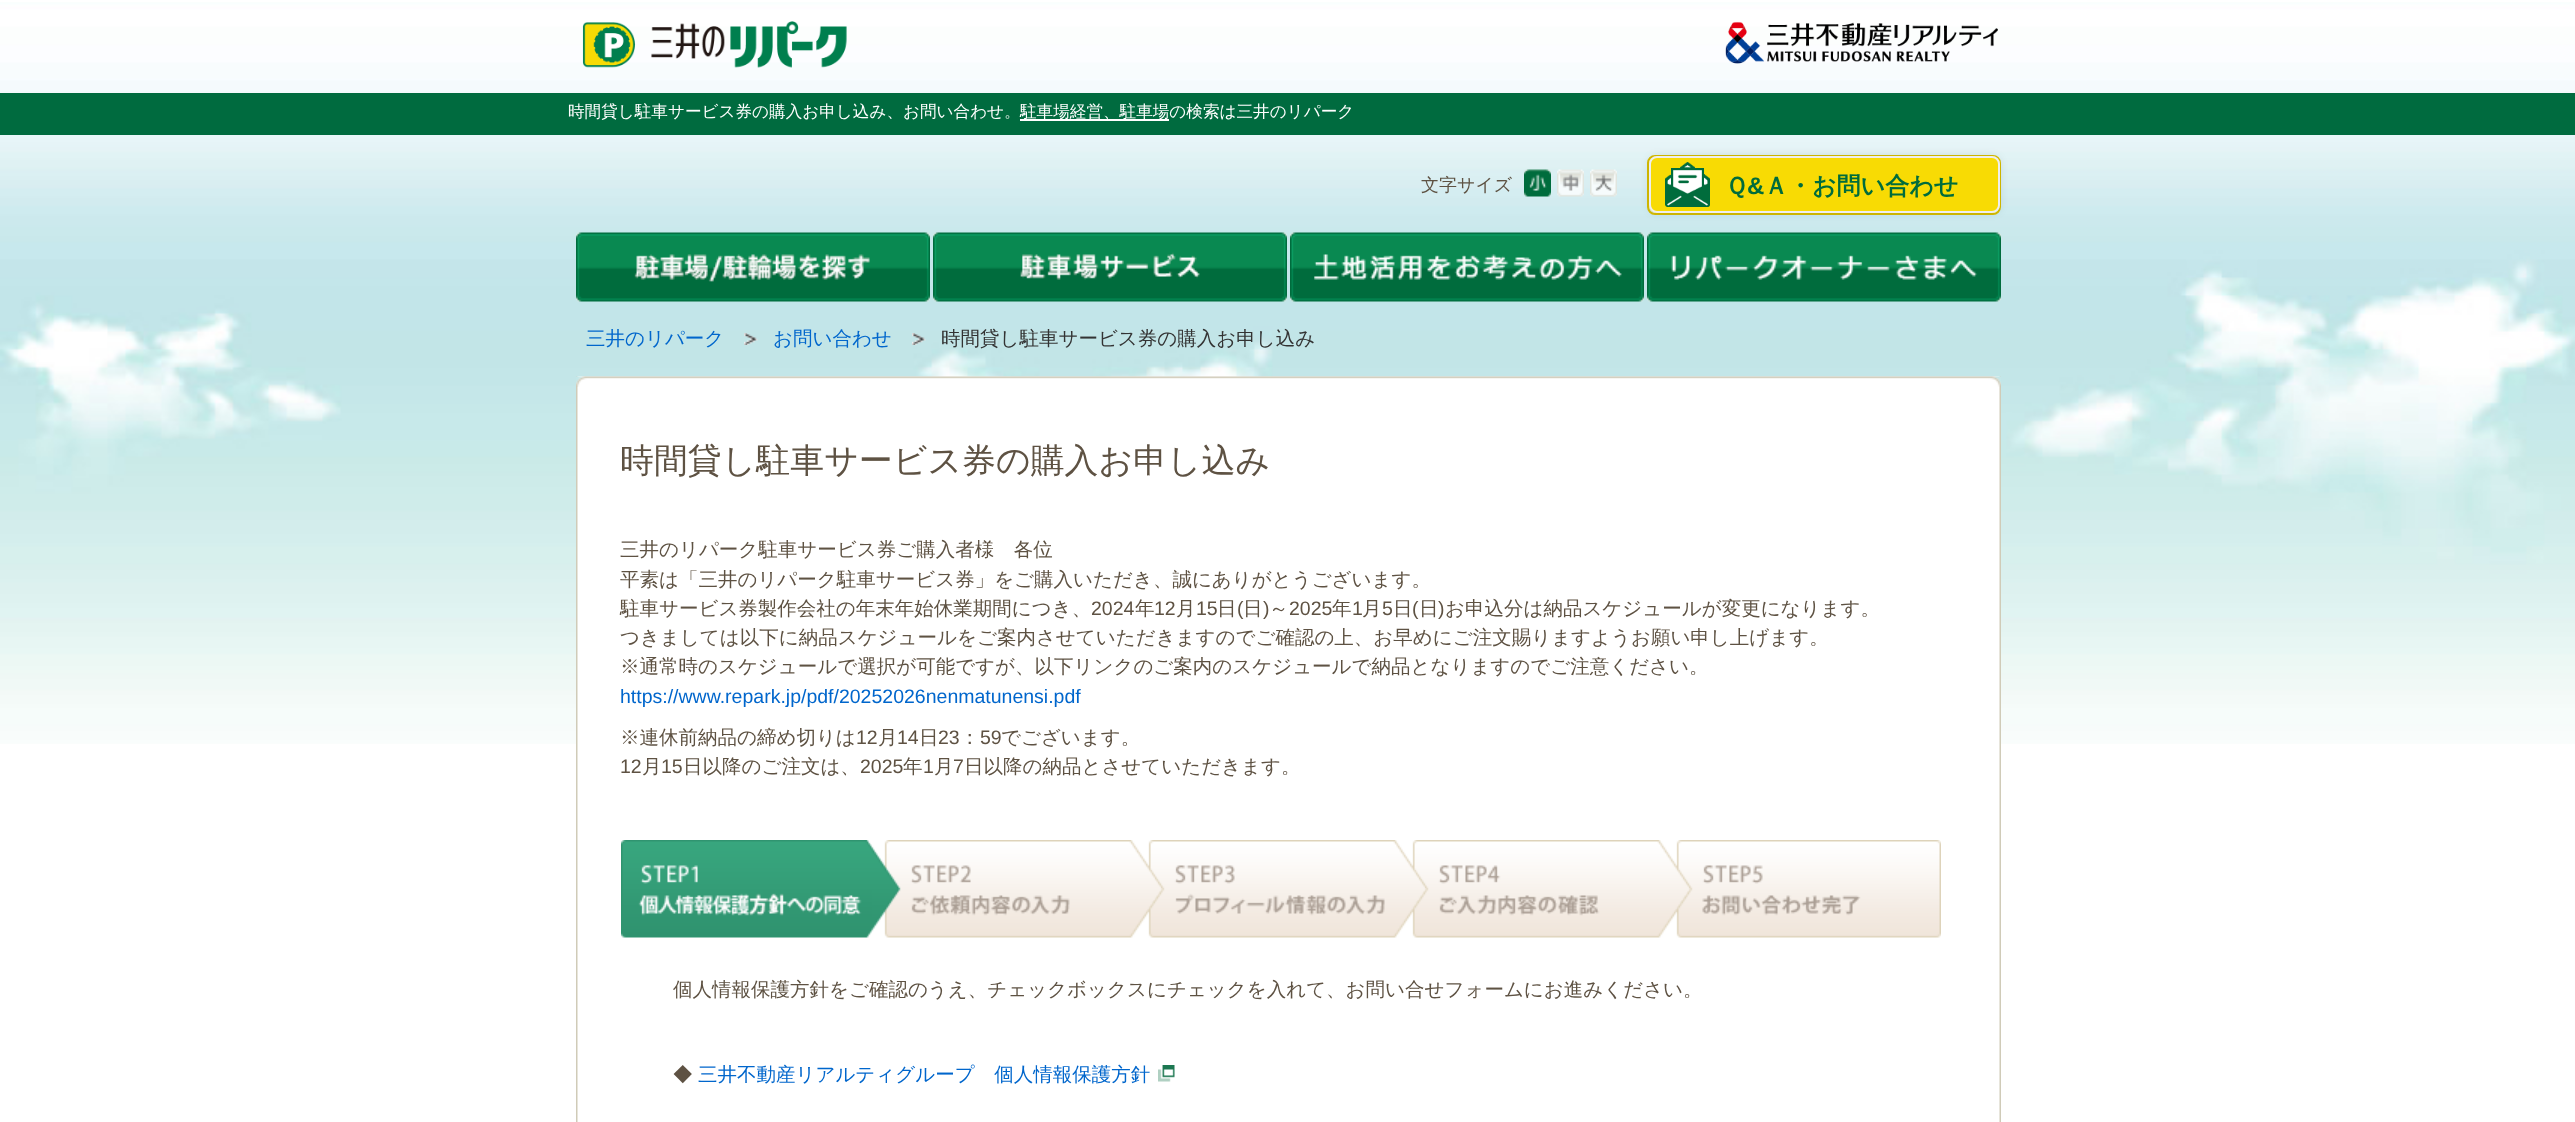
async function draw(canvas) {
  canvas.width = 2575
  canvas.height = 1122
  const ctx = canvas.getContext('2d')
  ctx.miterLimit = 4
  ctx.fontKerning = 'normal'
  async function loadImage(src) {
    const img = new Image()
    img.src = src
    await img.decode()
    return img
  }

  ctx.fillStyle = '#fff'
  ctx.fillRect(0, 0, 2575, 1122)
  ctx.drawImage(await loadImage('image0.png'), 0, 2, 2575, 742)
  ctx.drawImage(await loadImage('image1.png'), 582, 21, 265, 47)
  ctx.drawImage(await loadImage('image2.png'), 1725, 21, 273, 43)
  ctx.fillStyle = '#006b3f'
  ctx.fillRect(0, 93, 2575, 42)
  ctx.font = '500 16.6px WenQuanYi Zen Hei'
  ctx.fillStyle = '#fff'
  ctx.fillText('時間貸し駐車サービス券の購入お申し込み、お問い合わせ。', 568, 117)
  ctx.fillRect(1020, 119, 149, 2)
  ctx.fillText('駐車場経営、駐車場の検索は三井のリパーク', 1020, 117)
  ctx.font = '500 18px WenQuanYi Zen Hei'
  ctx.fillStyle = '#5e5243'
  ctx.fillText('文字サイズ', 1421, 191)
  ctx.drawImage(await loadImage('image3.png'), 1524, 169, 27, 28)
  ctx.drawImage(await loadImage('image4.png'), 1557, 169, 27, 28)
  ctx.drawImage(await loadImage('image5.png'), 1590, 169, 27, 28)
  ctx.beginPath()
  ctx.roundRect(1648, 156, 352, 58, 7)
  ctx.strokeStyle = '#d7bd00'
  ctx.lineWidth = 2
  ctx.stroke()
  ctx.fillStyle = '#0000001a'
  ctx.filter = 'blur(4px)'
  ctx.beginPath()
  ctx.roundRect(1649, 156, 351, 57, 8)
  ctx.fill()
  ctx.filter = 'none'
  ctx.fillStyle = '#f8db04'
  ctx.beginPath()
  ctx.roundRect(1649, 156, 351, 57, 8)
  ctx.fill()
  ctx.drawImage(await loadImage('image6.png'), 1665, 162, 45, 45)
  ctx.beginPath()
  ctx.roundRect(1650, 157, 349, 55, 7)
  ctx.strokeStyle = '#eee'
  ctx.stroke()
  ctx.font = 'bold 24px WenQuanYi Zen Hei'
  ctx.fillStyle = '#006c3c'
  ctx.fillText('Ｑ', 1725, 194)
  ctx.font = 'bold 24px Liberation Sans'
  ctx.fillText('&', 1747, 194)
  ctx.font = 'bold 24px WenQuanYi Zen Hei'
  ctx.fillText('Ａ・お問い合わせ', 1764, 194)
  ctx.drawImage(await loadImage('image7.png'), 576, 232, 354, 70)
  ctx.drawImage(await loadImage('image8.png'), 933, 232, 354, 70)
  ctx.drawImage(await loadImage('image9.png'), 1290, 232, 354, 70)
  ctx.drawImage(await loadImage('image10.png'), 1647, 232, 354, 70)
  ctx.font = '500 19.5px WenQuanYi Zen Hei'
  ctx.fillStyle = '#06c'
  ctx.fillText('三井のリパーク', 586, 345)
  ctx.drawImage(await loadImage('image11.png'), 744, 333, 14, 12)
  ctx.fillText('お問い合わせ', 773, 345)
  ctx.drawImage(await loadImage('image12.png'), 912, 333, 14, 12)
  ctx.fillStyle = '#333'
  ctx.fillText('時間貸し駐車サービス券の購入お申し込み', 941, 345)
  ctx.drawImage(await loadImage('image13.png'), 576, 376, 1425, 746)
  ctx.drawImage(await loadImage('image14.png'), 576, 376, 1425, 11)
  ctx.font = '500 33.9px WenQuanYi Zen Hei'
  ctx.fillStyle = '#5e5243'
  ctx.fillText('時間貸し駐車サービス券の購入お申し込み', 620, 472)
  ctx.font = '500 19.5px WenQuanYi Zen Hei'
  ctx.fillText('三井のリパーク駐車サービス券ご購入者様　各位', 620, 556)
  ctx.fillText('平素は「三井のリパーク駐車サービス券」をご購入いただき、誠にありがとうございます。', 620, 586)
  ctx.fillText('駐車サービス券製作会社の年末年始休業期間につき、', 620, 615)
  ctx.font = '19.5px Liberation Sans'
  ctx.fillText('2024', 1091, 615)
  ctx.font = '500 19.5px WenQuanYi Zen Hei'
  ctx.fillText('年', 1135, 615)
  ctx.font = '19.5px Liberation Sans'
  ctx.fillText('12', 1154, 615)
  ctx.font = '500 19.5px WenQuanYi Zen Hei'
  ctx.fillText('月', 1176, 615)
  ctx.font = '19.5px Liberation Sans'
  ctx.fillText('15', 1196, 615)
  ctx.font = '500 19.5px WenQuanYi Zen Hei'
  ctx.fillText('日', 1217, 615)
  ctx.font = '19.5px Liberation Sans'
  ctx.fillText('(', 1237, 615)
  ctx.font = '500 19.5px WenQuanYi Zen Hei'
  ctx.fillText('日', 1243, 615)
  ctx.font = '19.5px Liberation Sans'
  ctx.fillText(')', 1263, 615)
  ctx.font = '500 19.5px WenQuanYi Zen Hei'
  ctx.fillText('～', 1269, 615)
  ctx.font = '19.5px Liberation Sans'
  ctx.fillText('2025', 1289, 615)
  ctx.font = '500 19.5px WenQuanYi Zen Hei'
  ctx.fillText('年', 1332, 615)
  ctx.font = '19.5px Liberation Sans'
  ctx.fillText('1', 1352, 615)
  ctx.font = '500 19.5px WenQuanYi Zen Hei'
  ctx.fillText('月', 1362, 615)
  ctx.font = '19.5px Liberation Sans'
  ctx.fillText('5', 1382, 615)
  ctx.font = '500 19.5px WenQuanYi Zen Hei'
  ctx.fillText('日', 1393, 615)
  ctx.font = '19.5px Liberation Sans'
  ctx.fillText('(', 1412, 615)
  ctx.font = '500 19.5px WenQuanYi Zen Hei'
  ctx.fillText('日', 1419, 615)
  ctx.font = '19.5px Liberation Sans'
  ctx.fillText(')', 1438, 615)
  ctx.font = '500 19.5px WenQuanYi Zen Hei'
  ctx.fillText('お申込分は納品スケジュールが変更になります。', 1445, 615)
  ctx.fillText('つきましては以下に納品スケジュールをご案内させていただきますのでご確認の上、お早めにご注文賜りますようお願い申し上げます。', 620, 644)
  ctx.fillText('※通常時のスケジュールで選択が可能ですが、以下リンクのご案内のスケジュールで納品となりますのでご注意ください。', 620, 673)
  ctx.font = '19.5px Liberation Sans'
  ctx.fillStyle = '#06c'
  ctx.fillText('https://www.repark.jp/pdf/20252026nenmatunensi.pdf', 620, 703)
  ctx.font = '500 19.5px WenQuanYi Zen Hei'
  ctx.fillStyle = '#5e5243'
  ctx.fillText('※連休前納品の締め切りは', 620, 744)
  ctx.font = '19.5px Liberation Sans'
  ctx.fillText('12', 856, 744)
  ctx.font = '500 19.5px WenQuanYi Zen Hei'
  ctx.fillText('月', 878, 744)
  ctx.font = '19.5px Liberation Sans'
  ctx.fillText('14', 897, 744)
  ctx.font = '500 19.5px WenQuanYi Zen Hei'
  ctx.fillText('日', 919, 744)
  ctx.font = '19.5px Liberation Sans'
  ctx.fillText('23', 938, 744)
  ctx.font = '500 19.5px WenQuanYi Zen Hei'
  ctx.fillText('：', 960, 744)
  ctx.font = '19.5px Liberation Sans'
  ctx.fillText('59', 980, 744)
  ctx.font = '500 19.5px WenQuanYi Zen Hei'
  ctx.fillText('でございます。', 1001, 744)
  ctx.font = '19.5px Liberation Sans'
  ctx.fillText('12', 620, 773)
  ctx.font = '500 19.5px WenQuanYi Zen Hei'
  ctx.fillText('月', 642, 773)
  ctx.font = '19.5px Liberation Sans'
  ctx.fillText('15', 661, 773)
  ctx.font = '500 19.5px WenQuanYi Zen Hei'
  ctx.fillText('日以降のご注文は、', 683, 773)
  ctx.font = '19.5px Liberation Sans'
  ctx.fillText('2025', 860, 773)
  ctx.font = '500 19.5px WenQuanYi Zen Hei'
  ctx.fillText('年', 903, 773)
  ctx.font = '19.5px Liberation Sans'
  ctx.fillText('1', 923, 773)
  ctx.font = '500 19.5px WenQuanYi Zen Hei'
  ctx.fillText('月', 934, 773)
  ctx.font = '19.5px Liberation Sans'
  ctx.fillText('7', 953, 773)
  ctx.font = '500 19.5px WenQuanYi Zen Hei'
  ctx.fillText('日以降の納品とさせていただきます。', 964, 773)
  ctx.drawImage(await loadImage('image15.png'), 621, 840, 1320, 98)
  ctx.fillText('個人情報保護方針をご確認のうえ、チェックボックスにチェックを入れて、お問い合せフォームにお進みください。', 673, 996)
  ctx.fillText('◆', 673, 1081)
  ctx.fillStyle = '#06c'
  ctx.fillText('三井不動産リアルティグループ　個人情報保護方針', 698, 1081)
  ctx.drawImage(await loadImage('image16.png'), 1158, 1065, 17, 17)
}

draw(document.querySelector('canvas'))
